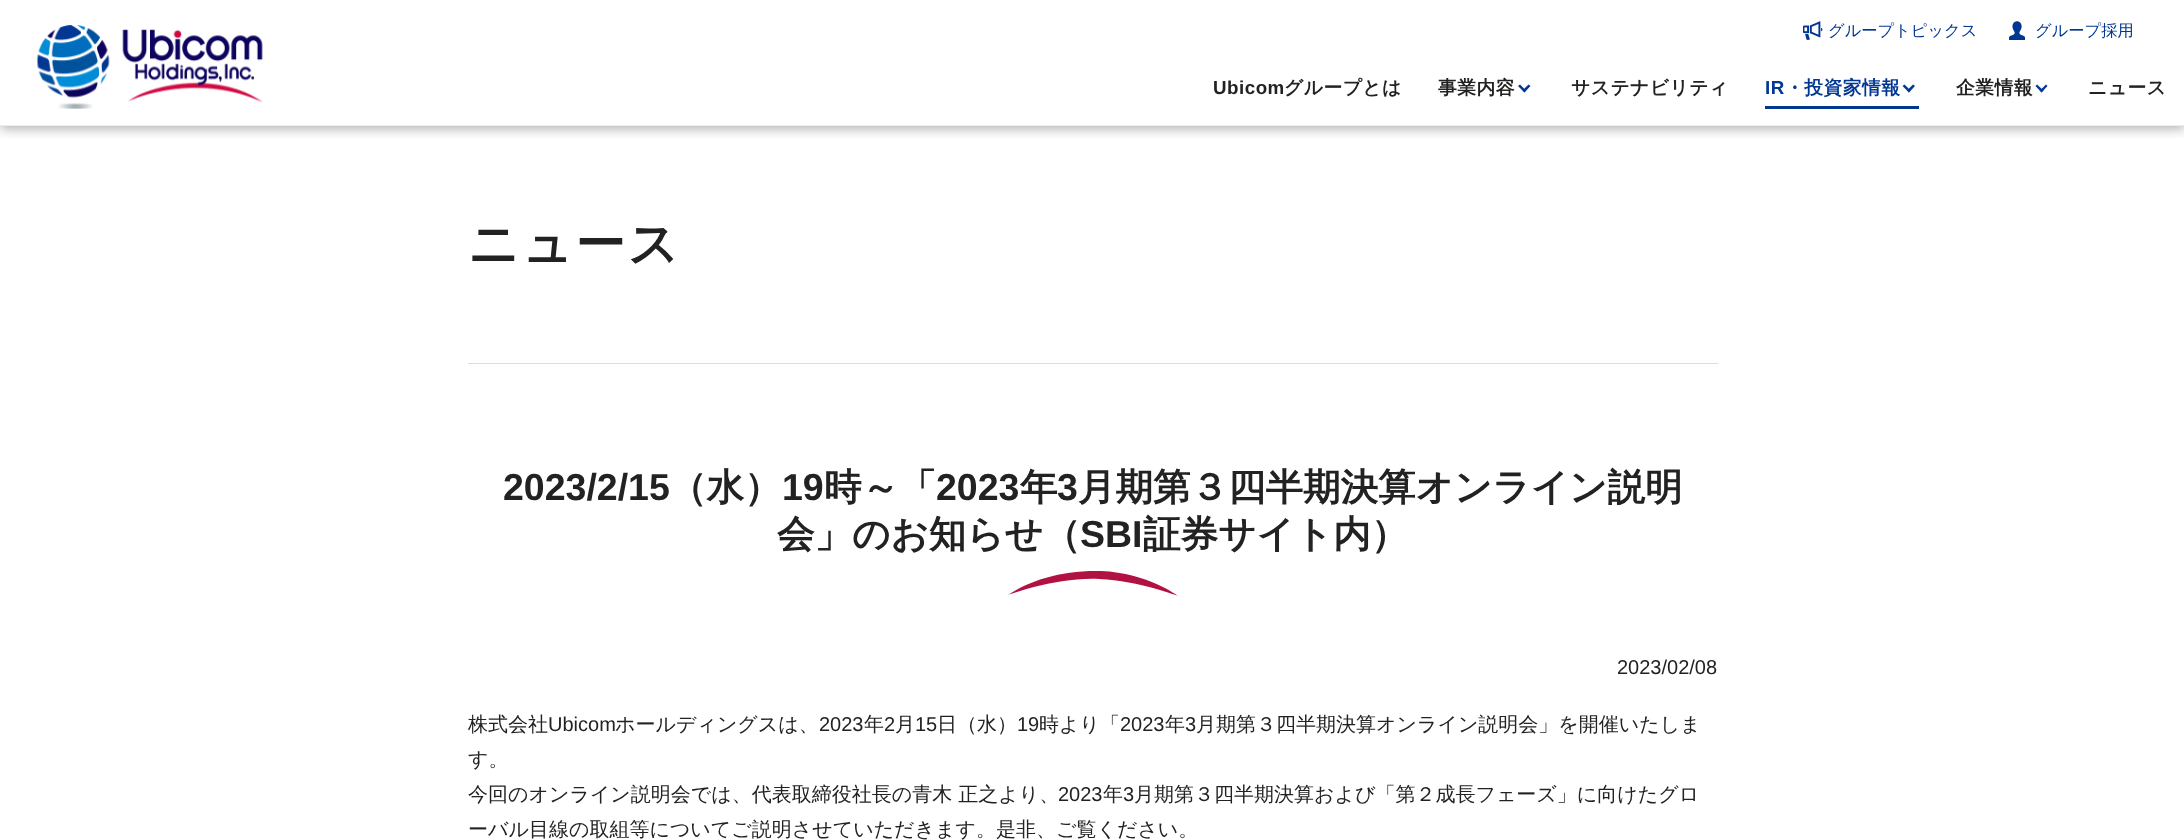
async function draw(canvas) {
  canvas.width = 2184
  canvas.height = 840
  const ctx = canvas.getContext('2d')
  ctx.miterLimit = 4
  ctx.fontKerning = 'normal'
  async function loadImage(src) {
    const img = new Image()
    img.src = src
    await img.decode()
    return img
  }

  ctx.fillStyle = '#fff'
  ctx.fillRect(0, 0, 2184, 840)
  ctx.save()
  ctx.beginPath()
  ctx.rect(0, 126, 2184, 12)
  ctx.clip()
  ctx.fillStyle = '#0000004d'
  ctx.filter = 'blur(6px)'
  ctx.beginPath()
  ctx.rect(0, 3, 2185, 126)
  ctx.fill()
  ctx.filter = 'none'
  ctx.restore()
  ctx.fillStyle = '#eee'
  ctx.fillRect(0, 125, 2184, 1)
  ctx.drawImage(await loadImage('image0.png'), 37, 25, 226, 84)
  ctx.drawImage(await loadImage('image1.png'), 1803, 21, 20, 19)
  ctx.font = '500 16.25px WenQuanYi Zen Hei'
  ctx.fillStyle = '#013793'
  ctx.fillText('グループトピックス', 1828, 36)
  ctx.drawImage(await loadImage('image2.png'), 2009, 21, 16, 19)
  ctx.fillText('グループ採用', 2035, 36)
  ctx.letterSpacing = '0.5px'
  ctx.font = 'bold 18.75px Liberation Sans'
  ctx.fillStyle = '#222'
  ctx.fillText('Ubicom', 1213, 94)
  ctx.font = 'bold 18.75px WenQuanYi Zen Hei'
  ctx.fillText('グループとは', 1284, 94)
  ctx.fillText('事業内容', 1438, 94)
  ctx.fillStyle = '#013793'
  ctx.beginPath()
  ctx.moveTo(1528.5, 84.5)
  ctx.lineTo(1530.5, 86)
  ctx.lineTo(1524.5, 92.5)
  ctx.lineTo(1522.5, 90.5)
  ctx.closePath()
  ctx.fill()
  ctx.beginPath()
  ctx.moveTo(1520, 84.5)
  ctx.lineTo(1526, 90.5)
  ctx.lineTo(1524.5, 92.5)
  ctx.lineTo(1518, 86)
  ctx.closePath()
  ctx.fill()
  ctx.fillStyle = '#222'
  ctx.fillText('サステナビリティ', 1571, 94)
  ctx.fillStyle = '#013793'
  ctx.fillRect(1765, 106, 154, 3)
  ctx.font = 'bold 18.75px Liberation Sans'
  ctx.fillText('IR', 1765, 94)
  ctx.font = 'bold 18.75px WenQuanYi Zen Hei'
  ctx.fillText('・投資家情報', 1785, 94)
  ctx.beginPath()
  ctx.moveTo(1913, 84.5)
  ctx.lineTo(1915, 86)
  ctx.lineTo(1909, 92.5)
  ctx.lineTo(1907, 90.5)
  ctx.closePath()
  ctx.fill()
  ctx.beginPath()
  ctx.moveTo(1904.5, 84.5)
  ctx.lineTo(1910.5, 90.5)
  ctx.lineTo(1909, 92.5)
  ctx.lineTo(1902.5, 86)
  ctx.closePath()
  ctx.fill()
  ctx.fillStyle = '#222'
  ctx.fillText('企業情報', 1956, 94)
  ctx.fillStyle = '#013793'
  ctx.beginPath()
  ctx.moveTo(2046, 84.5)
  ctx.lineTo(2047.5, 86)
  ctx.lineTo(2041.5, 92.5)
  ctx.lineTo(2040, 90.5)
  ctx.closePath()
  ctx.fill()
  ctx.beginPath()
  ctx.moveTo(2037, 84.5)
  ctx.lineTo(2043.5, 90.5)
  ctx.lineTo(2041.5, 92.5)
  ctx.lineTo(2035.5, 86)
  ctx.closePath()
  ctx.fill()
  ctx.fillStyle = '#222'
  ctx.fillText('ニュース', 2088, 94)
  ctx.fillStyle = '#d8dee6'
  ctx.fillRect(468, 363, 1250, 1)
  ctx.letterSpacing = '2.5px'
  ctx.font = 'bold 50px WenQuanYi Zen Hei'
  ctx.fillStyle = '#222'
  ctx.fillText('ニュース', 468, 261)
  ctx.letterSpacing = '0px'
  ctx.font = 'bold 37.5px Liberation Sans'
  ctx.fillText('2023/2/15', 503, 500)
  ctx.font = 'bold 37.5px WenQuanYi Zen Hei'
  ctx.fillText('（水）', 669, 500)
  ctx.font = 'bold 37.5px Liberation Sans'
  ctx.fillText('19', 782, 500)
  ctx.font = 'bold 37.5px WenQuanYi Zen Hei'
  ctx.fillText('時～「', 824, 500)
  ctx.font = 'bold 37.5px Liberation Sans'
  ctx.fillText('2023', 936, 500)
  ctx.font = 'bold 37.5px WenQuanYi Zen Hei'
  ctx.fillText('年', 1020, 500)
  ctx.font = 'bold 37.5px Liberation Sans'
  ctx.fillText('3', 1057, 500)
  ctx.font = 'bold 37.5px WenQuanYi Zen Hei'
  ctx.fillText('月期第３四半期決算オンライン説明', 1078, 500)
  ctx.fillText('会」のお知らせ（', 777, 547)
  ctx.font = 'bold 37.5px Liberation Sans'
  ctx.fillText('SBI', 1080, 547)
  ctx.font = 'bold 37.5px WenQuanYi Zen Hei'
  ctx.fillText('証券サイト内）', 1143, 547)
  ctx.fillStyle = '#b21242'
  ctx.beginPath()
  ctx.moveTo(1008, 595)
  ctx.bezierCurveTo(1008, 595, 1057, 577, 1099, 579)
  ctx.bezierCurveTo(1140, 581, 1178, 596, 1178, 596)
  ctx.bezierCurveTo(1178, 596, 1148, 573, 1101, 571)
  ctx.bezierCurveTo(1063, 570, 1030, 580, 1008, 595)
  ctx.closePath()
  ctx.fill('evenodd')
  ctx.font = '20px Liberation Sans'
  ctx.fillStyle = '#222'
  ctx.fillText('2023/02/08', 1617, 674)
  ctx.font = '500 20px WenQuanYi Zen Hei'
  ctx.fillText('株式会社', 468, 731)
  ctx.font = '20px Liberation Sans'
  ctx.fillText('Ubicom', 548, 731)
  ctx.font = '500 20px WenQuanYi Zen Hei'
  ctx.fillText('ホールディングスは、', 615, 731)
  ctx.font = '20px Liberation Sans'
  ctx.fillText('2023', 819, 731)
  ctx.font = '500 20px WenQuanYi Zen Hei'
  ctx.fillText('年', 864, 731)
  ctx.font = '20px Liberation Sans'
  ctx.fillText('2', 884, 731)
  ctx.font = '500 20px WenQuanYi Zen Hei'
  ctx.fillText('月', 895, 731)
  ctx.font = '20px Liberation Sans'
  ctx.fillText('15', 915, 731)
  ctx.font = '500 20px WenQuanYi Zen Hei'
  ctx.fillText('日（水）', 937, 731)
  ctx.font = '20px Liberation Sans'
  ctx.fillText('19', 1017, 731)
  ctx.font = '500 20px WenQuanYi Zen Hei'
  ctx.fillText('時より「', 1039, 731)
  ctx.font = '20px Liberation Sans'
  ctx.fillText('2023', 1120, 731)
  ctx.font = '500 20px WenQuanYi Zen Hei'
  ctx.fillText('年', 1165, 731)
  ctx.font = '20px Liberation Sans'
  ctx.fillText('3', 1185, 731)
  ctx.font = '500 20px WenQuanYi Zen Hei'
  ctx.fillText('月期第３四半期決算オンライン説明会」を開催いたしま', 1196, 731)
  ctx.fillText('す。', 468, 766)
  ctx.fillText('今回のオンライン説明会では、代表取締役社長の青木 正之より、', 468, 801)
  ctx.font = '20px Liberation Sans'
  ctx.fillText('2023', 1058, 801)
  ctx.font = '500 20px WenQuanYi Zen Hei'
  ctx.fillText('年', 1103, 801)
  ctx.font = '20px Liberation Sans'
  ctx.fillText('3', 1123, 801)
  ctx.font = '500 20px WenQuanYi Zen Hei'
  ctx.fillText('月期第３四半期決算および「第２成長フェーズ」に向けたグロ', 1134, 801)
  ctx.fillText('ーバル目線の取組等についてご説明させていただきます。是非、ご覧ください。', 468, 836)
}

draw(document.querySelector('canvas'))
